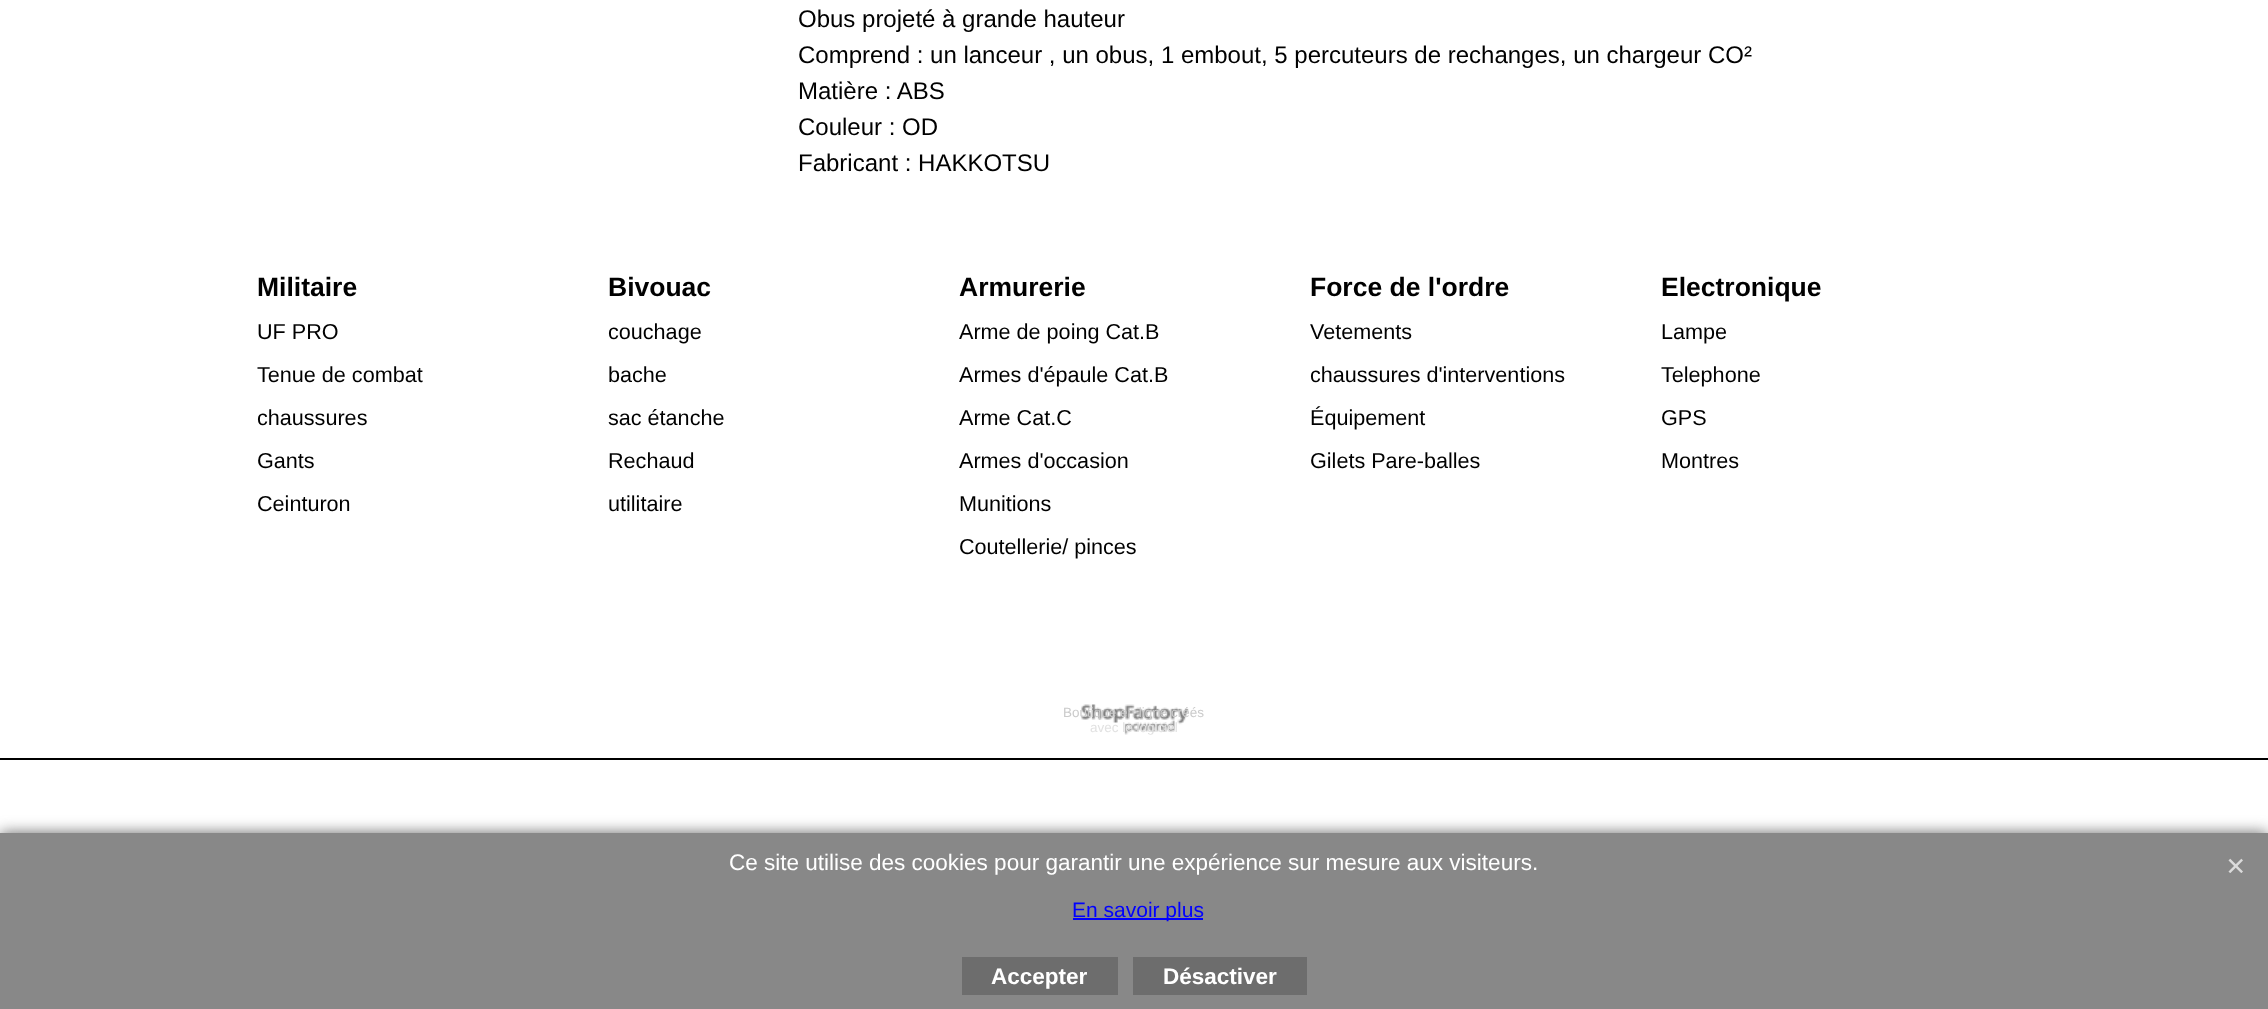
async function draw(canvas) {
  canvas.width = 2268
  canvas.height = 1009
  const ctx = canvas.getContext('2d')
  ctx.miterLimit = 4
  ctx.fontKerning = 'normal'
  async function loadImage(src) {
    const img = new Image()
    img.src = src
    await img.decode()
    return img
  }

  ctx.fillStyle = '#fff'
  ctx.fillRect(0, 0, 2268, 1009)
  ctx.font = '24px Liberation Sans'
  ctx.fillStyle = '#000'
  ctx.fillText('Obus projeté à grande hauteur', 798, 27)
  ctx.fillText('Comprend : un lanceur , un obus, 1 embout, 5 percuteurs de rechanges, un chargeur CO²', 798, 63)
  ctx.fillText('Matière : ABS', 798, 99)
  ctx.fillText('Couleur : OD', 798, 135)
  ctx.fillText('Fabricant : HAKKOTSU', 798, 171)
  ctx.font = 'bold 26.5px Liberation Sans'
  ctx.fillText('Militaire', 257, 296)
  ctx.font = '21.6px Liberation Sans'
  ctx.fillText('UF PRO', 257, 339)
  ctx.fillText('Tenue de combat', 257, 382)
  ctx.fillText('chaussures', 257, 425)
  ctx.fillText('Gants', 257, 468)
  ctx.fillText('Ceinturon', 257, 511)
  ctx.font = 'bold 26.5px Liberation Sans'
  ctx.fillText('Bivouac', 608, 296)
  ctx.font = '21.6px Liberation Sans'
  ctx.fillText('couchage', 608, 339)
  ctx.fillText('bache', 608, 382)
  ctx.fillText('sac étanche', 608, 425)
  ctx.fillText('Rechaud', 608, 468)
  ctx.fillText('utilitaire', 608, 511)
  ctx.font = 'bold 26.5px Liberation Sans'
  ctx.fillText('Armurerie', 959, 296)
  ctx.font = '21.6px Liberation Sans'
  ctx.fillText('Arme de poing Cat.B', 959, 339)
  ctx.fillText('Armes d\'épaule Cat.B', 959, 382)
  ctx.fillText('Arme Cat.C', 959, 425)
  ctx.fillText('Armes d\'occasion', 959, 468)
  ctx.fillText('Munitions', 959, 511)
  ctx.fillText('Coutellerie/ pinces', 959, 554)
  ctx.font = 'bold 26.5px Liberation Sans'
  ctx.fillText('Force de l\'ordre', 1310, 296)
  ctx.font = '21.6px Liberation Sans'
  ctx.fillText('Vetements', 1310, 339)
  ctx.fillText('chaussures d\'interventions', 1310, 382)
  ctx.fillText('Équipement', 1310, 425)
  ctx.fillText('Gilets Pare-balles', 1310, 468)
  ctx.font = 'bold 26.5px Liberation Sans'
  ctx.fillText('Electronique', 1661, 296)
  ctx.font = '21.6px Liberation Sans'
  ctx.fillText('Lampe', 1661, 339)
  ctx.fillText('Telephone', 1661, 382)
  ctx.fillText('GPS', 1661, 425)
  ctx.fillText('Montres', 1661, 468)
  ctx.drawImage(await loadImage('image0.png'), 1081, 704, 108, 31)
  ctx.font = '13.5px Liberation Sans'
  ctx.fillStyle = '#cbcbcb'
  ctx.fillText('Boutique en ligne créés', 1063, 717)
  ctx.fillStyle = '#e2e2e2'
  ctx.fillText('avec le logiciel', 1090, 732)
  ctx.fillStyle = '#000'
  ctx.fillRect(0, 758, 2268, 2)
  ctx.fillStyle = '#666'
  ctx.filter = 'blur(7.5px)'
  ctx.beginPath()
  ctx.rect(0, 833, 2268, 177)
  ctx.fill()
  ctx.filter = 'none'
  ctx.fillStyle = '#888'
  ctx.fillRect(0, 833, 2268, 176)
  ctx.font = '22.5px Liberation Sans'
  ctx.fillStyle = '#fff'
  ctx.fillText('Ce site utilise des cookies pour garantir une expérience sur mesure aux visiteurs.', 729, 870)
  ctx.fillStyle = '#00f'
  ctx.fillRect(1073, 918, 130, 2)
  ctx.font = '21px Liberation Sans'
  ctx.fillText('En savoir plus', 1072, 917)
  ctx.drawImage(await loadImage('image1.png'), 2228, 858, 15, 15)
  ctx.fillStyle = '#6d6d6d'
  ctx.fillRect(962, 957, 156, 38)
  ctx.font = 'bold 22.5px Liberation Sans'
  ctx.fillStyle = '#fff'
  ctx.fillText('Accepter', 991, 984)
  ctx.fillStyle = '#6d6d6d'
  ctx.fillRect(1133, 957, 174, 38)
  ctx.fillStyle = '#fff'
  ctx.fillText('Désactiver', 1163, 984)
}

draw(document.querySelector('canvas'))
